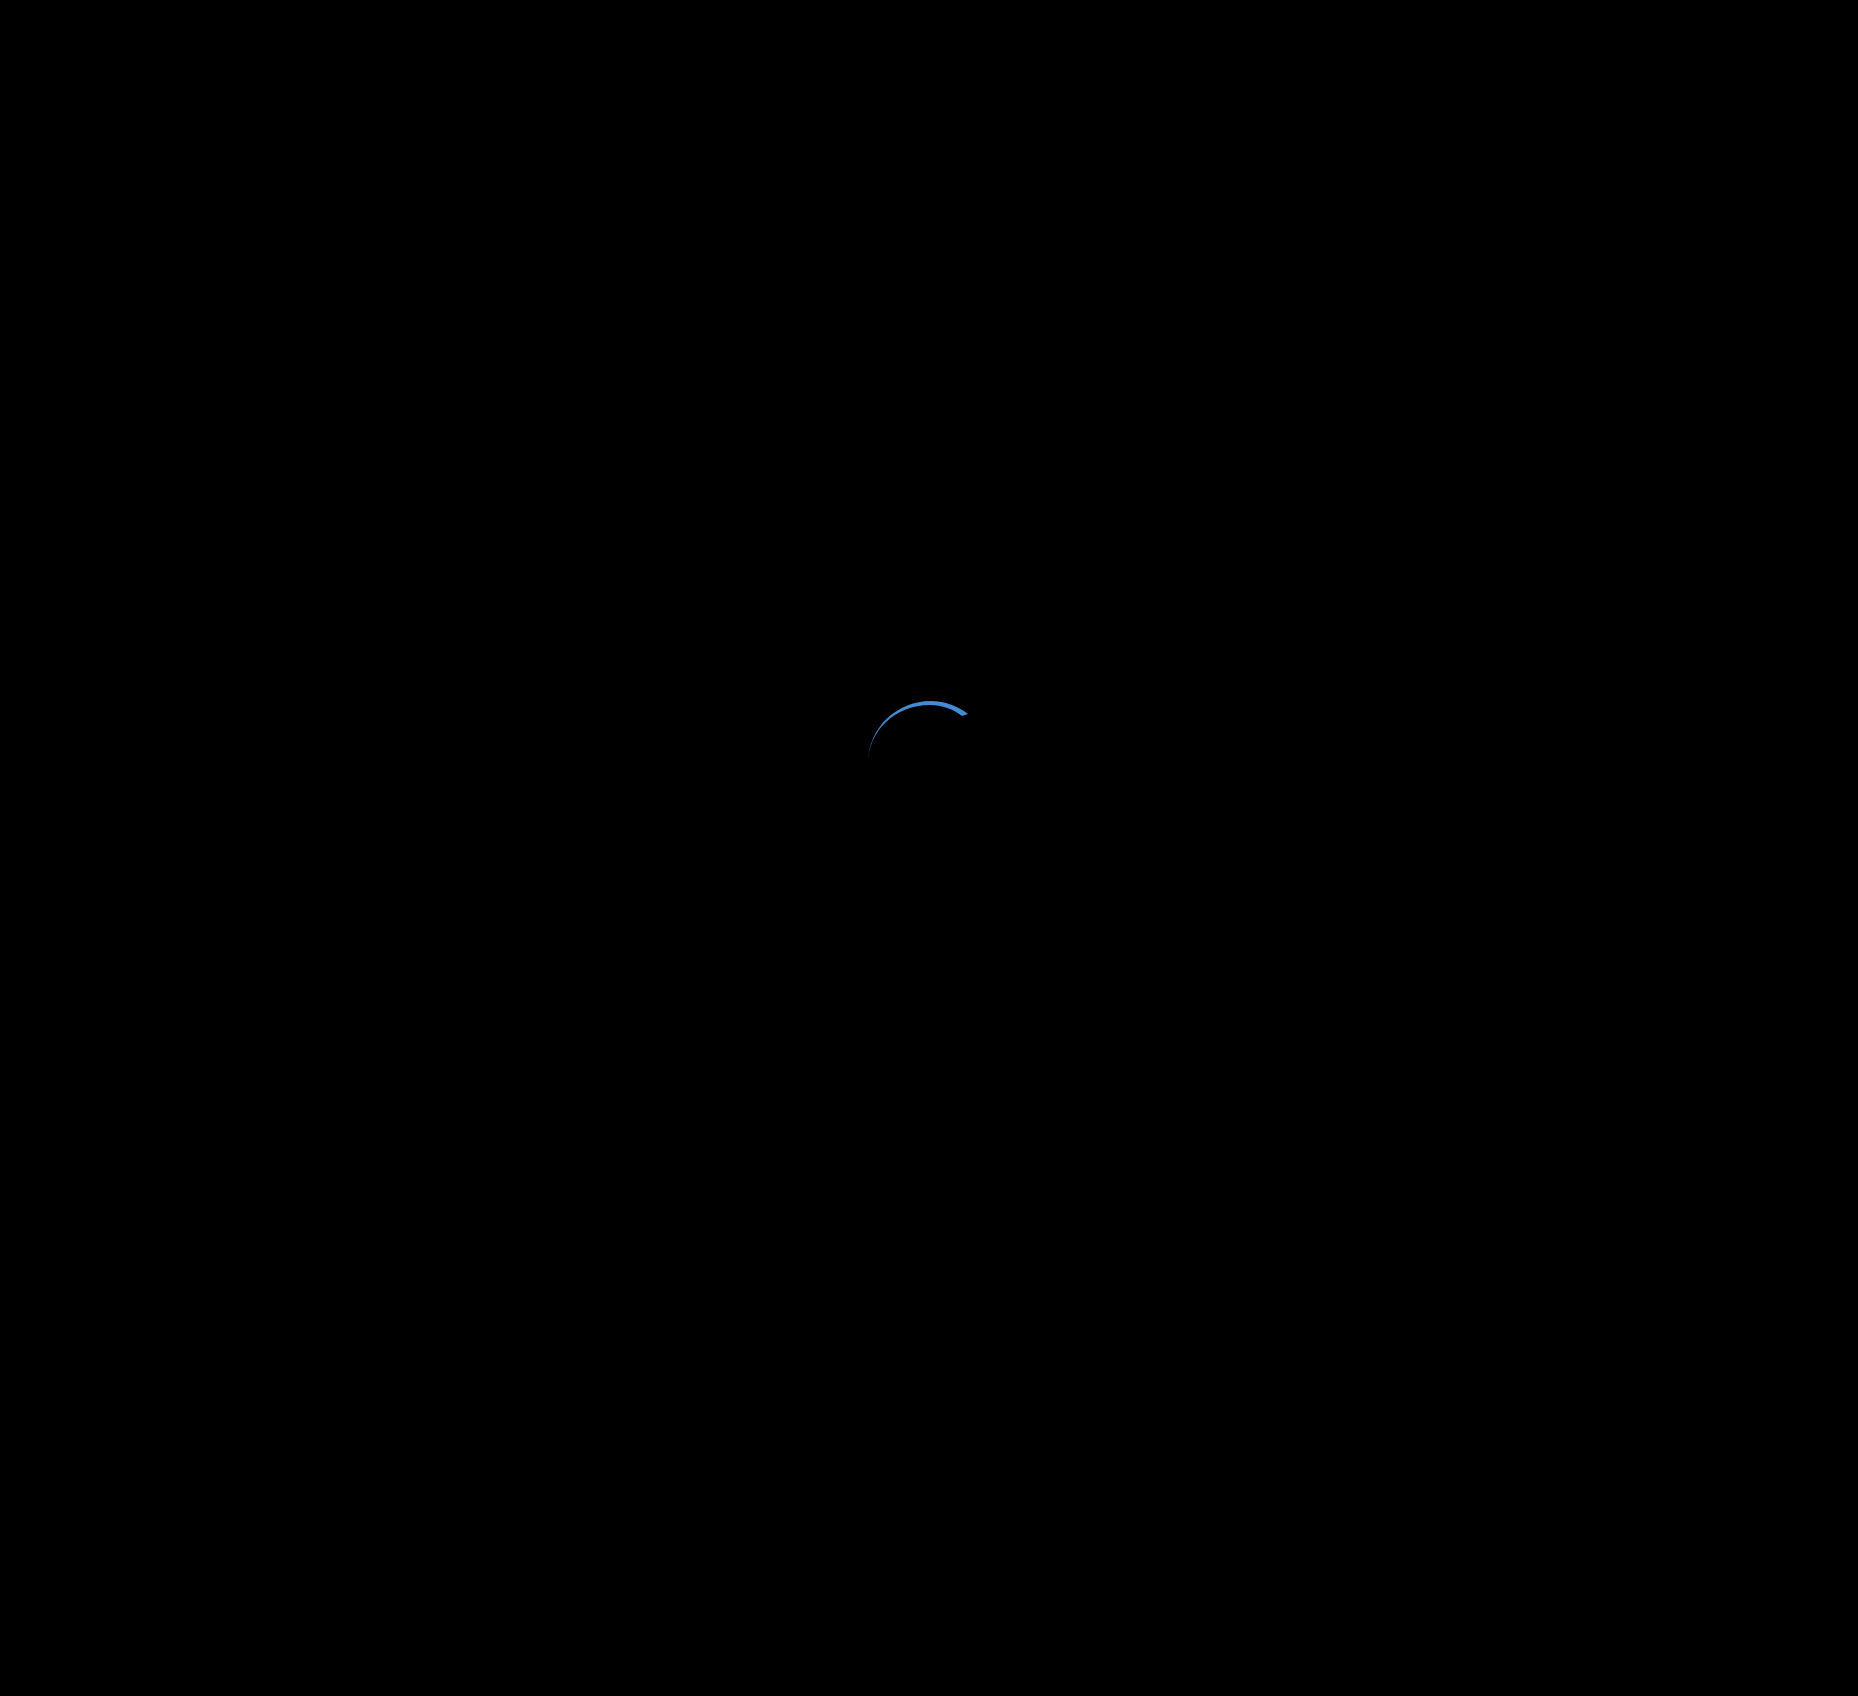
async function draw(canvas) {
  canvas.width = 1858
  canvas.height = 1696
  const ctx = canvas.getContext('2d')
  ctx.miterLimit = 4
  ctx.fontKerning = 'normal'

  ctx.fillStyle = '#000'
  ctx.fillRect(0, 0, 1858, 1696)
  ctx.fillStyle = '#448bd6'
  ctx.beginPath()
  ctx.moveTo(930, 705)
  ctx.bezierCurveTo(895, 705, 868, 731, 868, 764)
  ctx.bezierCurveTo(868, 711, 928, 683, 968, 714)
  ctx.lineTo(962, 716)
  ctx.bezierCurveTo(953, 709, 942, 705, 930, 705)
  ctx.closePath()
  ctx.fill()
}

draw(document.querySelector('canvas'))
